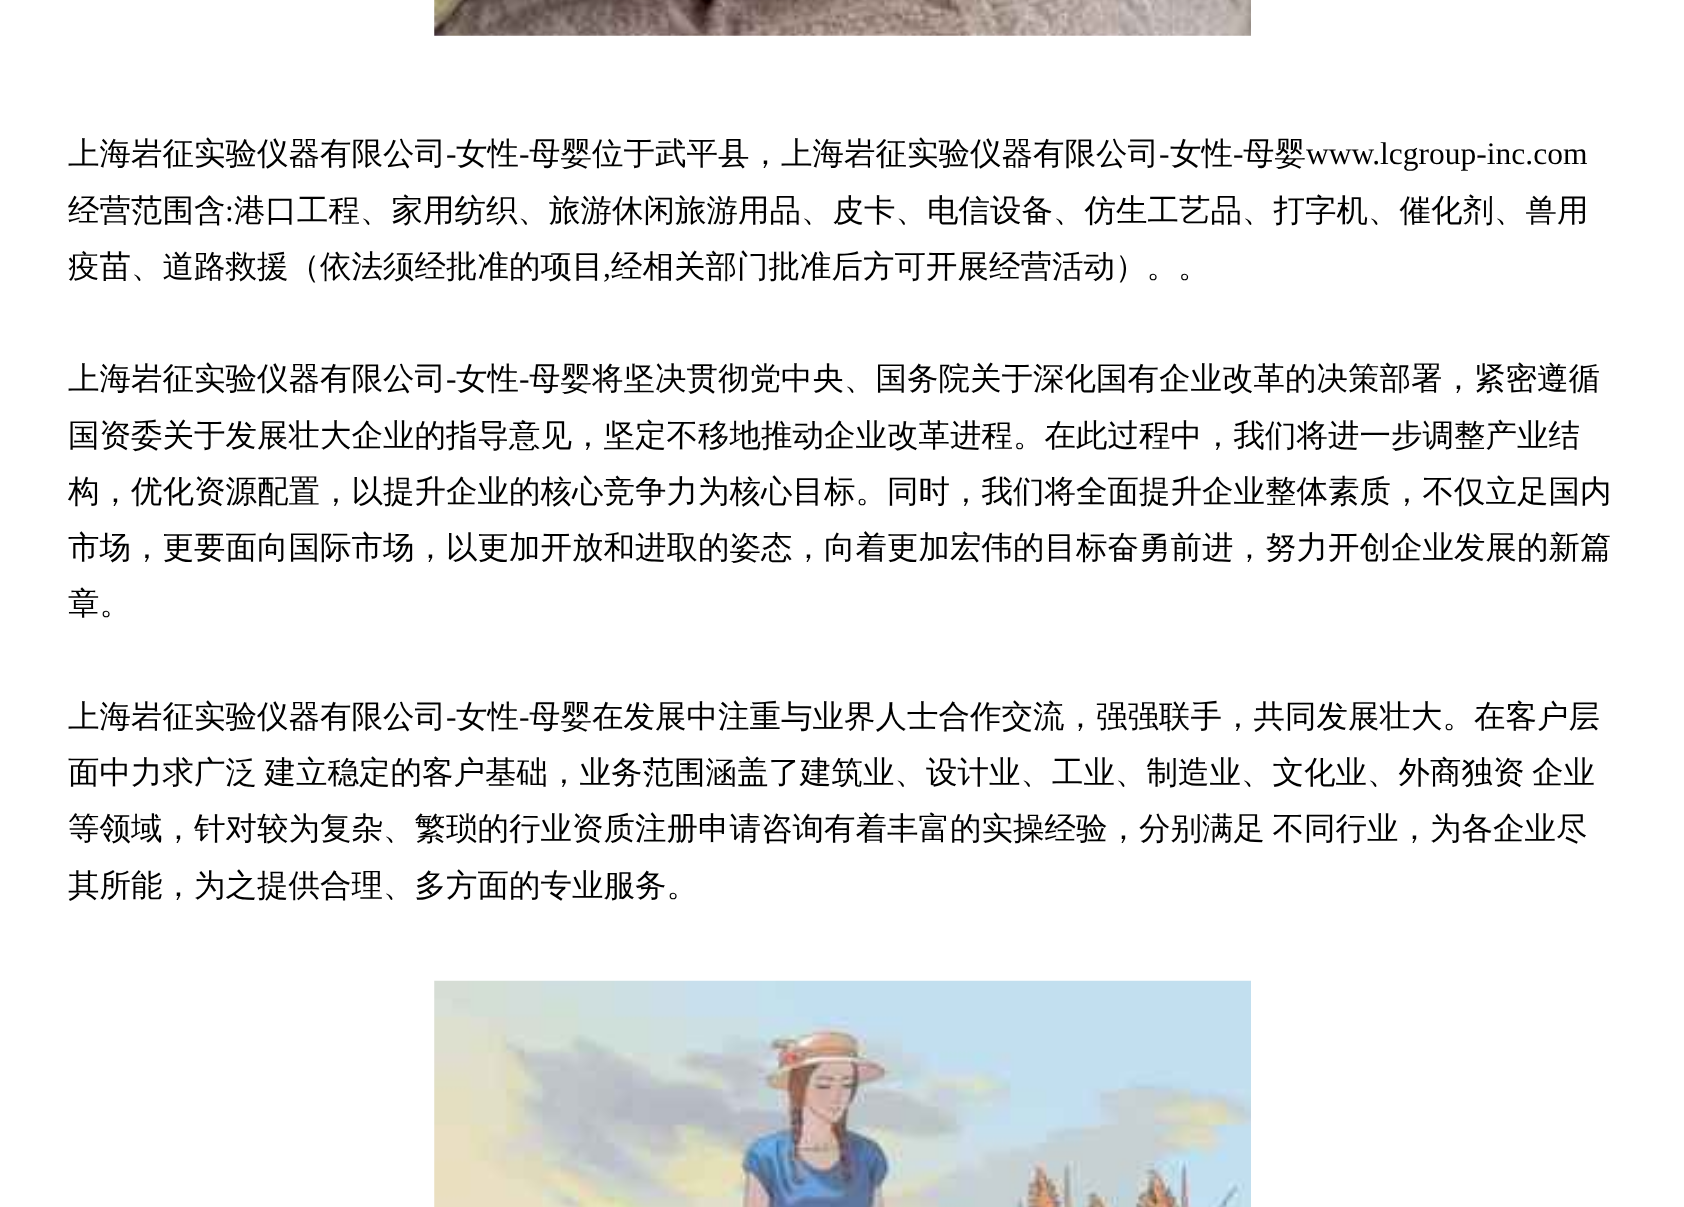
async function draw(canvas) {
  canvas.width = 1684
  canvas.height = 1207
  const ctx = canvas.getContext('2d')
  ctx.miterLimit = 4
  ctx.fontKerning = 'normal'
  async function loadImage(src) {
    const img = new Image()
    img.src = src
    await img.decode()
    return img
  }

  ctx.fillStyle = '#fff'
  ctx.fillRect(0, 0, 1684, 1207)
  ctx.drawImage(await loadImage('image0.png'), 434, 0, 817, 36)
  ctx.font = '500 31.5px WenQuanYi Zen Hei'
  ctx.fillStyle = '#000'
  ctx.fillText('上海岩征实验仪器有限公司', 68, 164)
  ctx.font = '31.5px Liberation Serif'
  ctx.fillText('-', 446, 164)
  ctx.font = '500 31.5px WenQuanYi Zen Hei'
  ctx.fillText('女性', 456, 164)
  ctx.font = '31.5px Liberation Serif'
  ctx.fillText('-', 519, 164)
  ctx.font = '500 31.5px WenQuanYi Zen Hei'
  ctx.fillText('母婴位于武平县，上海岩征实验仪器有限公司', 529, 164)
  ctx.font = '31.5px Liberation Serif'
  ctx.fillText('-', 1159, 164)
  ctx.font = '500 31.5px WenQuanYi Zen Hei'
  ctx.fillText('女性', 1170, 164)
  ctx.font = '31.5px Liberation Serif'
  ctx.fillText('-', 1233, 164)
  ctx.font = '500 31.5px WenQuanYi Zen Hei'
  ctx.fillText('母婴', 1243, 164)
  ctx.font = '31.5px Liberation Serif'
  ctx.fillText('www.lcgroup-inc.com', 1306, 164)
  ctx.font = '500 31.5px WenQuanYi Zen Hei'
  ctx.fillText('经营范围含', 68, 221)
  ctx.font = '31.5px Liberation Serif'
  ctx.fillText(':', 225, 221)
  ctx.font = '500 31.5px WenQuanYi Zen Hei'
  ctx.fillText('港口工程、家用纺织、旅游休闲旅游用品、皮卡、电信设备、仿生工艺品、打字机、催化剂、兽用', 234, 221)
  ctx.fillText('疫苗、道路救援（依法须经批准的项目', 68, 277)
  ctx.font = '31.5px Liberation Serif'
  ctx.fillText(',', 603, 277)
  ctx.font = '500 31.5px WenQuanYi Zen Hei'
  ctx.fillText('经相关部门批准后方可开展经营活动）。。', 611, 277)
  ctx.fillText('上海岩征实验仪器有限公司', 68, 389)
  ctx.font = '31.5px Liberation Serif'
  ctx.fillText('-', 446, 389)
  ctx.font = '500 31.5px WenQuanYi Zen Hei'
  ctx.fillText('女性', 456, 389)
  ctx.font = '31.5px Liberation Serif'
  ctx.fillText('-', 519, 389)
  ctx.font = '500 31.5px WenQuanYi Zen Hei'
  ctx.fillText('母婴将坚决贯彻党中央、国务院关于深化国有企业改革的决策部署，紧密遵循', 529, 389)
  ctx.fillText('国资委关于发展壮大企业的指导意见，坚定不移地推动企业改革进程。在此过程中，我们将进一步调整产业结', 68, 446)
  ctx.fillText('构，优化资源配置，以提升企业的核心竞争力为核心目标。同时，我们将全面提升企业整体素质，不仅立足国内', 68, 502)
  ctx.fillText('市场，更要面向国际市场，以更加开放和进取的姿态，向着更加宏伟的目标奋勇前进，努力开创企业发展的新篇', 68, 558)
  ctx.fillText('章。', 68, 614)
  ctx.fillText('上海岩征实验仪器有限公司', 68, 727)
  ctx.font = '31.5px Liberation Serif'
  ctx.fillText('-', 446, 727)
  ctx.font = '500 31.5px WenQuanYi Zen Hei'
  ctx.fillText('女性', 456, 727)
  ctx.font = '31.5px Liberation Serif'
  ctx.fillText('-', 519, 727)
  ctx.font = '500 31.5px WenQuanYi Zen Hei'
  ctx.fillText('母婴在发展中注重与业界人士合作交流，强强联手，共同发展壮大。在客户层', 529, 727)
  ctx.wordSpacing = '-2px'
  ctx.fillText('面中力求广泛 建立稳定的客户基础，业务范围涵盖了建筑业、设计业、工业、制造业、文化业、外商独资 企业', 68, 783)
  ctx.fillText('等领域，针对较为复杂、繁琐的行业资质注册申请咨询有着丰富的实操经验，分别满足 不同行业，为各企业尽', 68, 839)
  ctx.wordSpacing = '0px'
  ctx.fillText('其所能，为之提供合理、多方面的专业服务。', 68, 896)
  ctx.drawImage(await loadImage('image1.png'), 434, 980, 817, 227)
}

draw(document.querySelector('canvas'))
